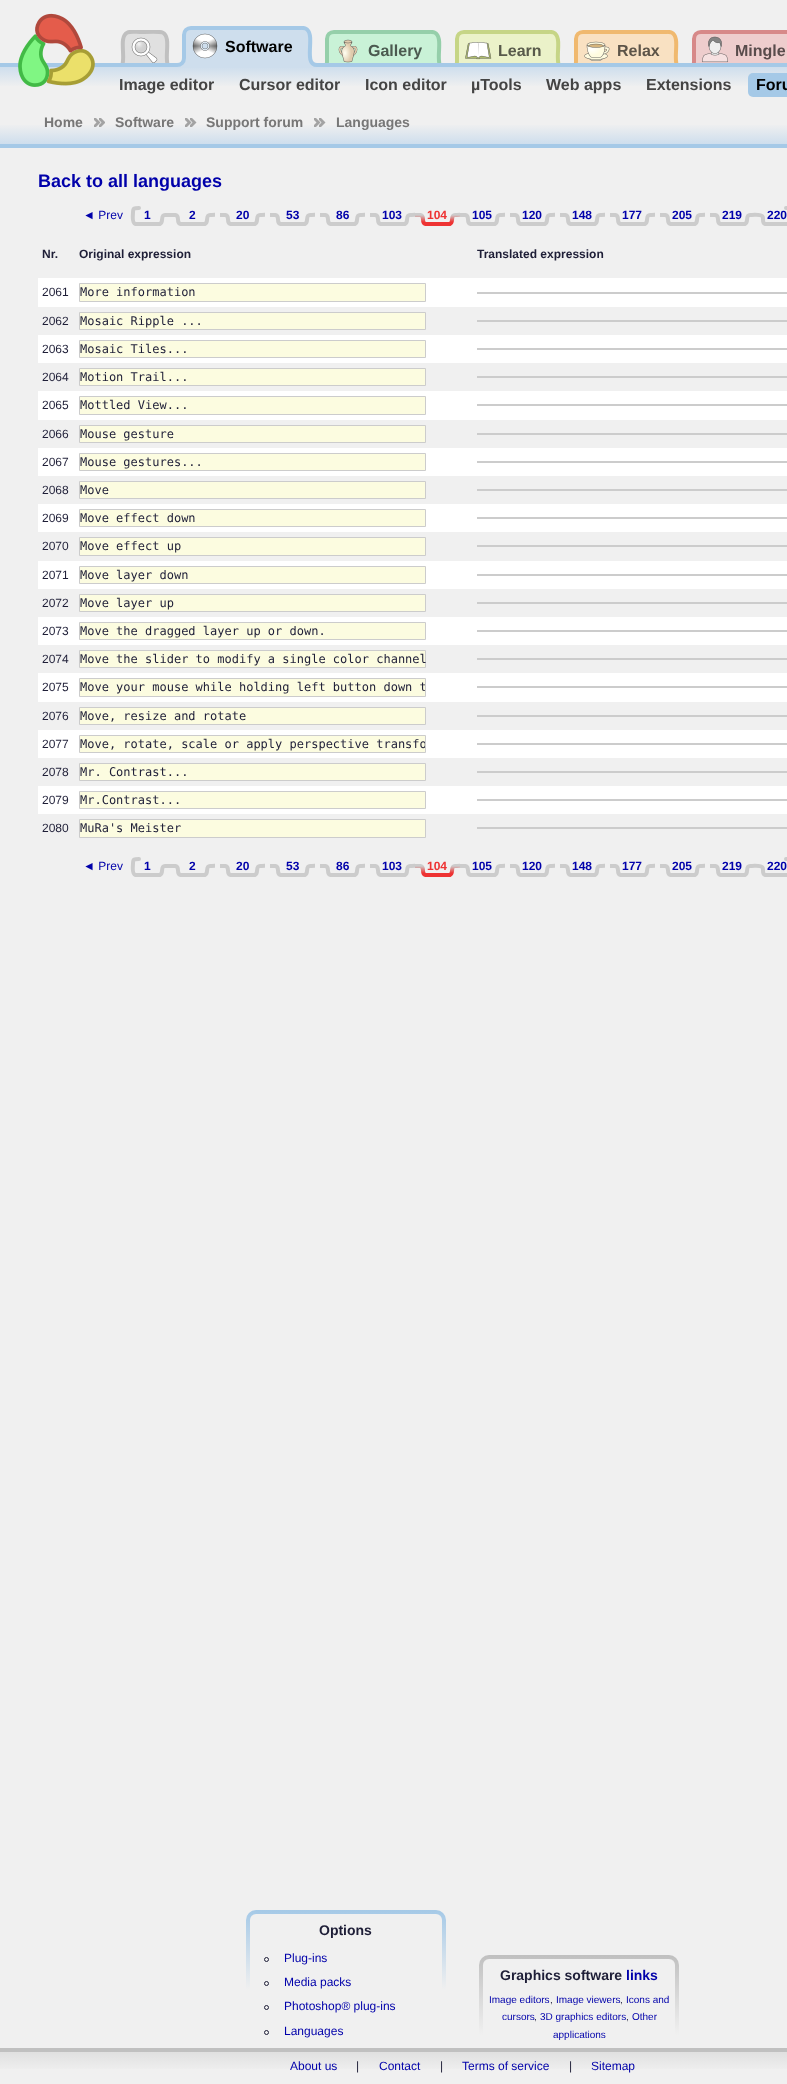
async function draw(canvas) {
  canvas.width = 787
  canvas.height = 2084
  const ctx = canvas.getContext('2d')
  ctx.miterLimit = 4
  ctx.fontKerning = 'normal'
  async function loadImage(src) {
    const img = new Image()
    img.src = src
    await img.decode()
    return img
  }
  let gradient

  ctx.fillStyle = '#f0f0f0'
  ctx.fillRect(0, 0, 787, 2084)
  ctx.fillStyle = '#e0e0e0'
  ctx.beginPath()
  ctx.moveTo(116, 69)
  ctx.bezierCurveTo(131, 69, 116, 37, 127, 33)
  ctx.bezierCurveTo(131, 31, 136, 32, 140, 32)
  ctx.bezierCurveTo(145, 32, 159, 31, 163, 33)
  ctx.bezierCurveTo(174, 37, 159, 69, 174, 69)
  ctx.lineTo(174, 72)
  ctx.lineTo(116, 72)
  ctx.closePath()
  ctx.fill()
  ctx.save()
  ctx.beginPath()
  ctx.rect(116, 30, 58, 42)
  ctx.clip()
  ctx.beginPath()
  ctx.moveTo(116, 69)
  ctx.bezierCurveTo(131, 69, 116, 37.5, 127.5, 32.5)
  ctx.bezierCurveTo(131, 31, 136, 32, 140, 32)
  ctx.bezierCurveTo(144.5, 32, 159, 31, 162.5, 32.5)
  ctx.bezierCurveTo(174, 37.5, 159, 69, 174, 69)
  ctx.strokeStyle = '#c0c0c0'
  ctx.lineWidth = 4
  ctx.stroke()
  ctx.restore()
  ctx.fillStyle = '#c9f2d7'
  ctx.beginPath()
  ctx.moveTo(396, 32)
  ctx.lineTo(420, 32)
  ctx.bezierCurveTo(424, 32, 430, 31, 435, 33)
  ctx.bezierCurveTo(446, 37, 431, 69, 446, 69)
  ctx.lineTo(446, 72)
  ctx.lineTo(396, 72)
  ctx.closePath()
  ctx.fill()
  ctx.save()
  ctx.beginPath()
  ctx.rect(396, 30, 50, 42)
  ctx.clip()
  ctx.beginPath()
  ctx.moveTo(396, 32)
  ctx.lineTo(420, 32)
  ctx.bezierCurveTo(424.5, 32, 430.5, 31, 434.5, 32.5)
  ctx.bezierCurveTo(446, 37.5, 431, 69, 446, 69)
  ctx.strokeStyle = '#95cfaa'
  ctx.lineWidth = 4
  ctx.stroke()
  ctx.restore()
  ctx.save()
  ctx.beginPath()
  ctx.rect(320, 30, 110, 42)
  ctx.clip()
  ctx.beginPath()
  ctx.moveTo(320, 72)
  ctx.lineTo(320, 69)
  ctx.bezierCurveTo(324, 69, 327, 66, 327, 62)
  ctx.lineTo(327, 39)
  ctx.bezierCurveTo(327, 35, 330, 32, 334, 32)
  ctx.lineTo(520, 32)
  ctx.lineTo(520, 72)
  ctx.closePath()
  ctx.fill()
  ctx.beginPath()
  ctx.moveTo(320, 69)
  ctx.bezierCurveTo(324, 69, 327, 66, 327, 62)
  ctx.lineTo(327, 39)
  ctx.bezierCurveTo(327, 35, 330, 32, 334, 32)
  ctx.lineTo(520, 32)
  ctx.strokeStyle = '#95cfaa'
  ctx.lineWidth = 4
  ctx.stroke()
  ctx.restore()
  ctx.fillStyle = '#ebf2c9'
  ctx.beginPath()
  ctx.moveTo(515, 32)
  ctx.lineTo(539, 32)
  ctx.bezierCurveTo(543, 32, 549, 31, 554, 33)
  ctx.bezierCurveTo(565, 37, 550, 69, 565, 69)
  ctx.lineTo(565, 72)
  ctx.lineTo(515, 72)
  ctx.closePath()
  ctx.fill()
  ctx.save()
  ctx.beginPath()
  ctx.rect(515, 30, 50, 42)
  ctx.clip()
  ctx.beginPath()
  ctx.moveTo(515, 32)
  ctx.lineTo(539, 32)
  ctx.bezierCurveTo(543.5, 32, 549.5, 31, 553.5, 32.5)
  ctx.bezierCurveTo(565, 37.5, 550, 69, 565, 69)
  ctx.strokeStyle = '#c6d586'
  ctx.lineWidth = 4
  ctx.stroke()
  ctx.restore()
  ctx.save()
  ctx.beginPath()
  ctx.rect(450, 30, 99, 42)
  ctx.clip()
  ctx.beginPath()
  ctx.moveTo(450, 72)
  ctx.lineTo(450, 69)
  ctx.bezierCurveTo(454, 69, 457, 66, 457, 62)
  ctx.lineTo(457, 39)
  ctx.bezierCurveTo(457, 35, 460, 32, 464, 32)
  ctx.lineTo(650, 32)
  ctx.lineTo(650, 72)
  ctx.closePath()
  ctx.fill()
  ctx.beginPath()
  ctx.moveTo(450, 69)
  ctx.bezierCurveTo(454, 69, 457, 66, 457, 62)
  ctx.lineTo(457, 39)
  ctx.bezierCurveTo(457, 35, 460, 32, 464, 32)
  ctx.lineTo(650, 32)
  ctx.strokeStyle = '#c6d586'
  ctx.lineWidth = 4
  ctx.stroke()
  ctx.restore()
  ctx.fillStyle = '#f9e1c2'
  ctx.beginPath()
  ctx.moveTo(633, 32)
  ctx.lineTo(657, 32)
  ctx.bezierCurveTo(661, 32, 667, 31, 672, 33)
  ctx.bezierCurveTo(683, 37, 668, 69, 683, 69)
  ctx.lineTo(683, 72)
  ctx.lineTo(633, 72)
  ctx.closePath()
  ctx.fill()
  ctx.save()
  ctx.beginPath()
  ctx.rect(633, 30, 50, 42)
  ctx.clip()
  ctx.beginPath()
  ctx.moveTo(633, 32)
  ctx.lineTo(657, 32)
  ctx.bezierCurveTo(661.5, 32, 667.5, 31, 671.5, 32.5)
  ctx.bezierCurveTo(683, 37.5, 668, 69, 683, 69)
  ctx.strokeStyle = '#f0b96f'
  ctx.lineWidth = 4
  ctx.stroke()
  ctx.restore()
  ctx.save()
  ctx.beginPath()
  ctx.rect(569, 30, 98, 42)
  ctx.clip()
  ctx.beginPath()
  ctx.moveTo(569, 72)
  ctx.lineTo(569, 69)
  ctx.bezierCurveTo(573, 69, 576, 66, 576, 62)
  ctx.lineTo(576, 39)
  ctx.bezierCurveTo(576, 35, 579, 32, 583, 32)
  ctx.lineTo(769, 32)
  ctx.lineTo(769, 72)
  ctx.closePath()
  ctx.fill()
  ctx.beginPath()
  ctx.moveTo(569, 69)
  ctx.bezierCurveTo(573, 69, 576, 66, 576, 62)
  ctx.lineTo(576, 39)
  ctx.bezierCurveTo(576, 35, 579, 32, 583, 32)
  ctx.lineTo(769, 32)
  ctx.strokeStyle = '#f0b96f'
  ctx.lineWidth = 4
  ctx.stroke()
  ctx.restore()
  ctx.fillStyle = '#eecdcd'
  ctx.beginPath()
  ctx.moveTo(687, 72)
  ctx.lineTo(687, 69)
  ctx.bezierCurveTo(691, 69, 694, 66, 694, 62)
  ctx.lineTo(694, 39)
  ctx.bezierCurveTo(694, 35, 697, 32, 701, 32)
  ctx.lineTo(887, 32)
  ctx.lineTo(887, 72)
  ctx.closePath()
  ctx.fill()
  ctx.beginPath()
  ctx.moveTo(687, 69)
  ctx.bezierCurveTo(691, 69, 694, 66, 694, 62)
  ctx.lineTo(694, 39)
  ctx.bezierCurveTo(694, 35, 697, 32, 701, 32)
  ctx.lineTo(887, 32)
  ctx.strokeStyle = '#d78989'
  ctx.lineWidth = 4
  ctx.stroke()
  gradient = ctx.createLinearGradient(463, 63, 463, 113)
  gradient.addColorStop(0, '#a5c9e7')
  gradient.addColorStop(0.08, '#a5c9e7')
  gradient.addColorStop(0.08, '#cedeed')
  gradient.addColorStop(0.48, '#f0f0f0')
  ctx.fillStyle = gradient
  ctx.fillRect(0, 63, 787, 23)
  ctx.drawImage(await loadImage('image0.png'), 18, 13, 77, 74)
  ctx.drawImage(await loadImage('image1.png'), 131, 37, 27, 26)
  ctx.fillStyle = '#cedeed'
  ctx.beginPath()
  ctx.moveTo(267, 28)
  ctx.lineTo(291, 28)
  ctx.bezierCurveTo(295, 28, 301, 27, 306, 29)
  ctx.bezierCurveTo(317, 33, 302, 65, 317, 65)
  ctx.lineTo(317, 68)
  ctx.lineTo(267, 68)
  ctx.closePath()
  ctx.fill()
  ctx.save()
  ctx.beginPath()
  ctx.rect(267, 26, 50, 42)
  ctx.clip()
  ctx.beginPath()
  ctx.moveTo(267, 28)
  ctx.lineTo(291, 28)
  ctx.bezierCurveTo(295.5, 28, 301.5, 27, 305.5, 28.5)
  ctx.bezierCurveTo(317, 33.5, 302, 65, 317, 65)
  ctx.strokeStyle = '#a5c9e7'
  ctx.stroke()
  ctx.restore()
  ctx.save()
  ctx.beginPath()
  ctx.rect(177, 26, 124, 42)
  ctx.clip()
  ctx.beginPath()
  ctx.moveTo(177, 68)
  ctx.lineTo(177, 65)
  ctx.bezierCurveTo(181, 65, 184, 62, 184, 58)
  ctx.lineTo(184, 35)
  ctx.bezierCurveTo(184, 31, 187, 28, 191, 28)
  ctx.lineTo(377, 28)
  ctx.lineTo(377, 68)
  ctx.closePath()
  ctx.fill()
  ctx.beginPath()
  ctx.moveTo(177, 65)
  ctx.bezierCurveTo(181, 65, 184, 62, 184, 58)
  ctx.lineTo(184, 35)
  ctx.bezierCurveTo(184, 31, 187, 28, 191, 28)
  ctx.lineTo(377, 28)
  ctx.strokeStyle = '#a5c9e7'
  ctx.stroke()
  ctx.restore()
  ctx.drawImage(await loadImage('image2.png'), 192, 33, 26, 26)
  ctx.font = 'bold 16px Liberation Sans'
  ctx.fillStyle = '#000'
  ctx.fillText('Software', 225, 52)
  ctx.fillStyle = '#444'
  ctx.fillText('Image editor', 119, 90)
  ctx.fillText('Cursor editor', 239, 90)
  ctx.fillText('Icon editor', 365, 90)
  ctx.fillText('µTools', 471, 90)
  ctx.fillText('Web apps', 546, 90)
  ctx.fillText('Extensions', 646, 90)
  ctx.fillStyle = '#a5c9e7'
  ctx.beginPath()
  ctx.roundRect(748, 73, 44, 24, 5)
  ctx.fill()
  ctx.fillStyle = '#000'
  ctx.fillText('Foru', 756, 90)
  ctx.drawImage(await loadImage('image3.png'), 338, 39, 20, 24)
  ctx.fillStyle = '#4b5a50'
  ctx.fillText('Gallery', 368, 56)
  ctx.drawImage(await loadImage('image4.png'), 465, 42, 27, 18)
  ctx.fillStyle = '#585a4b'
  ctx.fillText('Learn', 498, 56)
  ctx.drawImage(await loadImage('image5.png'), 584, 41, 26, 20)
  ctx.fillStyle = '#5d5448'
  ctx.fillText('Relax', 617, 56)
  ctx.drawImage(await loadImage('image6.png'), 702, 36, 26, 27)
  ctx.fillStyle = '#594c4c'
  ctx.fillText('Mingle', 735, 56)
  gradient = ctx.createLinearGradient(463, 144, 463, 72)
  gradient.addColorStop(0, '#cedeed')
  gradient.addColorStop(0.28, '#f0f0f0')
  ctx.fillStyle = gradient
  ctx.fillRect(0, 125, 787, 19)
  ctx.fillStyle = '#a5c9e7'
  ctx.fillRect(0, 144, 787, 4)
  ctx.font = 'bold 14px Liberation Sans'
  ctx.fillStyle = '#777'
  ctx.fillText('Home', 44, 127)
  ctx.drawImage(await loadImage('image7.png'), 94, 118, 11, 9)
  ctx.fillText('Software', 115, 127)
  ctx.drawImage(await loadImage('image8.png'), 185, 118, 12, 9)
  ctx.fillText('Support forum', 206, 127)
  ctx.drawImage(await loadImage('image8.png'), 314, 118, 12, 9)
  ctx.fillText('Languages', 336, 127)
  ctx.font = 'bold 18px Liberation Sans'
  ctx.fillStyle = '#00a'
  ctx.fillText('Back to all languages', 38, 187)
  ctx.font = '12px Liberation Sans'
  ctx.fillText('◄ Prev', 83, 219)
  ctx.save()
  ctx.beginPath()
  ctx.rect(125, 206, 45, 20)
  ctx.clip()
  ctx.beginPath()
  ctx.moveTo(139, 208)
  ctx.bezierCurveTo(134.5, 208, 133, 208, 133, 212.5)
  ctx.bezierCurveTo(133, 215.5, 131.5, 223, 135.5, 224)
  ctx.lineTo(160, 224)
  ctx.bezierCurveTo(164, 222, 160, 215, 165, 215)
  ctx.lineTo(175.5, 215)
  ctx.bezierCurveTo(180.5, 216, 175.5, 223, 180.5, 224)
  ctx.lineTo(205, 224)
  ctx.bezierCurveTo(209, 222, 205, 215, 210, 215)
  ctx.bezierCurveTo(212.5, 215, 221, 214, 222.5, 216.5)
  ctx.bezierCurveTo(224, 218.5, 221.5, 222.5, 225, 224)
  ctx.lineTo(250, 224)
  ctx.bezierCurveTo(253, 222.5, 252, 218.5, 252, 216)
  ctx.bezierCurveTo(252, 209.5, 253, 208, 246, 208)
  ctx.strokeStyle = '#ccc'
  ctx.lineCap = 'round'
  ctx.stroke()
  ctx.restore()
  ctx.font = 'bold 12px Liberation Sans'
  ctx.fillText('1', 144, 219)
  ctx.save()
  ctx.beginPath()
  ctx.rect(170, 206, 45, 20)
  ctx.clip()
  ctx.beginPath()
  ctx.moveTo(139, 208)
  ctx.bezierCurveTo(134.5, 208, 133, 208, 133, 212.5)
  ctx.bezierCurveTo(133, 215.5, 131.5, 223, 135.5, 224)
  ctx.lineTo(160, 224)
  ctx.bezierCurveTo(164, 222, 160, 215, 165, 215)
  ctx.lineTo(175.5, 215)
  ctx.bezierCurveTo(180.5, 216, 175.5, 223, 180.5, 224)
  ctx.lineTo(205, 224)
  ctx.bezierCurveTo(209, 222, 205, 215, 210, 215)
  ctx.bezierCurveTo(212.5, 215, 221, 214, 222.5, 216.5)
  ctx.bezierCurveTo(224, 218.5, 221.5, 222.5, 225, 224)
  ctx.lineTo(250, 224)
  ctx.bezierCurveTo(253, 222.5, 252, 218.5, 252, 216)
  ctx.bezierCurveTo(252, 209.5, 253, 208, 246, 208)
  ctx.strokeStyle = '#ccc'
  ctx.lineCap = 'round'
  ctx.stroke()
  ctx.restore()
  ctx.fillText('2', 189, 219)
  ctx.save()
  ctx.beginPath()
  ctx.rect(220, 206, 45, 20)
  ctx.clip()
  ctx.beginPath()
  ctx.moveTo(189, 208)
  ctx.bezierCurveTo(184.5, 208, 183, 208, 183, 212.5)
  ctx.bezierCurveTo(183, 215.5, 181.5, 223, 185.5, 224)
  ctx.lineTo(210, 224)
  ctx.bezierCurveTo(214, 222, 210, 215, 215, 215)
  ctx.lineTo(225.5, 215)
  ctx.bezierCurveTo(230.5, 216, 225.5, 223, 230.5, 224)
  ctx.lineTo(255, 224)
  ctx.bezierCurveTo(259, 222, 255, 215, 260, 215)
  ctx.bezierCurveTo(262.5, 215, 271, 214, 272.5, 216.5)
  ctx.bezierCurveTo(274, 218.5, 271.5, 222.5, 275, 224)
  ctx.lineTo(300, 224)
  ctx.bezierCurveTo(303, 222.5, 302, 218.5, 302, 216)
  ctx.bezierCurveTo(302, 209.5, 303, 208, 296, 208)
  ctx.strokeStyle = '#ccc'
  ctx.lineCap = 'round'
  ctx.stroke()
  ctx.restore()
  ctx.fillText('20', 236, 219)
  ctx.save()
  ctx.beginPath()
  ctx.rect(270, 206, 45, 20)
  ctx.clip()
  ctx.beginPath()
  ctx.moveTo(239, 208)
  ctx.bezierCurveTo(234.5, 208, 233, 208, 233, 212.5)
  ctx.bezierCurveTo(233, 215.5, 231.5, 223, 235.5, 224)
  ctx.lineTo(260, 224)
  ctx.bezierCurveTo(264, 222, 260, 215, 265, 215)
  ctx.lineTo(275.5, 215)
  ctx.bezierCurveTo(280.5, 216, 275.5, 223, 280.5, 224)
  ctx.lineTo(305, 224)
  ctx.bezierCurveTo(309, 222, 305, 215, 310, 215)
  ctx.bezierCurveTo(312.5, 215, 321, 214, 322.5, 216.5)
  ctx.bezierCurveTo(324, 218.5, 321.5, 222.5, 325, 224)
  ctx.lineTo(350, 224)
  ctx.bezierCurveTo(353, 222.5, 352, 218.5, 352, 216)
  ctx.bezierCurveTo(352, 209.5, 353, 208, 346, 208)
  ctx.strokeStyle = '#ccc'
  ctx.lineCap = 'round'
  ctx.stroke()
  ctx.restore()
  ctx.fillText('53', 286, 219)
  ctx.save()
  ctx.beginPath()
  ctx.rect(320, 206, 45, 20)
  ctx.clip()
  ctx.beginPath()
  ctx.moveTo(289, 208)
  ctx.bezierCurveTo(284.5, 208, 283, 208, 283, 212.5)
  ctx.bezierCurveTo(283, 215.5, 281.5, 223, 285.5, 224)
  ctx.lineTo(310, 224)
  ctx.bezierCurveTo(314, 222, 310, 215, 315, 215)
  ctx.lineTo(325.5, 215)
  ctx.bezierCurveTo(330.5, 216, 325.5, 223, 330.5, 224)
  ctx.lineTo(355, 224)
  ctx.bezierCurveTo(359, 222, 355, 215, 360, 215)
  ctx.bezierCurveTo(362.5, 215, 371, 214, 372.5, 216.5)
  ctx.bezierCurveTo(374, 218.5, 371.5, 222.5, 375, 224)
  ctx.lineTo(400, 224)
  ctx.bezierCurveTo(403, 222.5, 402, 218.5, 402, 216)
  ctx.bezierCurveTo(402, 209.5, 403, 208, 396, 208)
  ctx.strokeStyle = '#ccc'
  ctx.lineCap = 'round'
  ctx.stroke()
  ctx.restore()
  ctx.fillText('86', 336, 219)
  ctx.save()
  ctx.beginPath()
  ctx.rect(370, 206, 45, 20)
  ctx.clip()
  ctx.beginPath()
  ctx.moveTo(339, 208)
  ctx.bezierCurveTo(334.5, 208, 333, 208, 333, 212.5)
  ctx.bezierCurveTo(333, 215.5, 331.5, 223, 335.5, 224)
  ctx.lineTo(360, 224)
  ctx.bezierCurveTo(364, 222, 360, 215, 365, 215)
  ctx.lineTo(375.5, 215)
  ctx.bezierCurveTo(380.5, 216, 375.5, 223, 380.5, 224)
  ctx.lineTo(405, 224)
  ctx.bezierCurveTo(409, 222, 405, 215, 410, 215)
  ctx.bezierCurveTo(412.5, 215, 421, 214, 422.5, 216.5)
  ctx.bezierCurveTo(424, 218.5, 421.5, 222.5, 425, 224)
  ctx.lineTo(450, 224)
  ctx.bezierCurveTo(453, 222.5, 452, 218.5, 452, 216)
  ctx.bezierCurveTo(452, 209.5, 453, 208, 446, 208)
  ctx.strokeStyle = '#ccc'
  ctx.lineCap = 'round'
  ctx.stroke()
  ctx.restore()
  ctx.fillText('103', 382, 219)
  ctx.save()
  ctx.beginPath()
  ctx.rect(415, 206, 45, 20)
  ctx.clip()
  ctx.beginPath()
  ctx.moveTo(384, 208)
  ctx.bezierCurveTo(379.5, 208, 378, 208, 378, 212.5)
  ctx.bezierCurveTo(378, 215.5, 376.5, 223, 380.5, 224)
  ctx.lineTo(405, 224)
  ctx.bezierCurveTo(409, 222, 405, 215, 410, 215)
  ctx.lineTo(420.5, 215)
  ctx.bezierCurveTo(425.5, 216, 420.5, 223, 425.5, 224)
  ctx.lineTo(450, 224)
  ctx.bezierCurveTo(454, 222, 450, 215, 455, 215)
  ctx.bezierCurveTo(457.5, 215, 466, 214, 467.5, 216.5)
  ctx.bezierCurveTo(469, 218.5, 466.5, 222.5, 470, 224)
  ctx.lineTo(495, 224)
  ctx.bezierCurveTo(498, 222.5, 497, 218.5, 497, 216)
  ctx.bezierCurveTo(497, 209.5, 498, 208, 491, 208)
  gradient = ctx.createLinearGradient(378, 222, 378, 215)
  gradient.addColorStop(0, '#e33')
  gradient.addColorStop(1, '#ccc')
  ctx.strokeStyle = gradient
  ctx.lineCap = 'round'
  ctx.stroke()
  ctx.restore()
  ctx.fillStyle = '#e33'
  ctx.fillText('104', 427, 219)
  ctx.save()
  ctx.beginPath()
  ctx.rect(460, 206, 45, 20)
  ctx.clip()
  ctx.beginPath()
  ctx.moveTo(429, 208)
  ctx.bezierCurveTo(424.5, 208, 423, 208, 423, 212.5)
  ctx.bezierCurveTo(423, 215.5, 421.5, 223, 425.5, 224)
  ctx.lineTo(450, 224)
  ctx.bezierCurveTo(454, 222, 450, 215, 455, 215)
  ctx.lineTo(465.5, 215)
  ctx.bezierCurveTo(470.5, 216, 465.5, 223, 470.5, 224)
  ctx.lineTo(495, 224)
  ctx.bezierCurveTo(499, 222, 495, 215, 500, 215)
  ctx.bezierCurveTo(502.5, 215, 511, 214, 512.5, 216.5)
  ctx.bezierCurveTo(514, 218.5, 511.5, 222.5, 515, 224)
  ctx.lineTo(540, 224)
  ctx.bezierCurveTo(543, 222.5, 542, 218.5, 542, 216)
  ctx.bezierCurveTo(542, 209.5, 543, 208, 536, 208)
  ctx.strokeStyle = '#ccc'
  ctx.lineCap = 'round'
  ctx.stroke()
  ctx.restore()
  ctx.fillStyle = '#00a'
  ctx.fillText('105', 472, 219)
  ctx.save()
  ctx.beginPath()
  ctx.rect(510, 206, 45, 20)
  ctx.clip()
  ctx.beginPath()
  ctx.moveTo(479, 208)
  ctx.bezierCurveTo(474.5, 208, 473, 208, 473, 212.5)
  ctx.bezierCurveTo(473, 215.5, 471.5, 223, 475.5, 224)
  ctx.lineTo(500, 224)
  ctx.bezierCurveTo(504, 222, 500, 215, 505, 215)
  ctx.lineTo(515.5, 215)
  ctx.bezierCurveTo(520.5, 216, 515.5, 223, 520.5, 224)
  ctx.lineTo(545, 224)
  ctx.bezierCurveTo(549, 222, 545, 215, 550, 215)
  ctx.bezierCurveTo(552.5, 215, 561, 214, 562.5, 216.5)
  ctx.bezierCurveTo(564, 218.5, 561.5, 222.5, 565, 224)
  ctx.lineTo(590, 224)
  ctx.bezierCurveTo(593, 222.5, 592, 218.5, 592, 216)
  ctx.bezierCurveTo(592, 209.5, 593, 208, 586, 208)
  ctx.strokeStyle = '#ccc'
  ctx.lineCap = 'round'
  ctx.stroke()
  ctx.restore()
  ctx.fillText('120', 522, 219)
  ctx.save()
  ctx.beginPath()
  ctx.rect(560, 206, 45, 20)
  ctx.clip()
  ctx.beginPath()
  ctx.moveTo(529, 208)
  ctx.bezierCurveTo(524.5, 208, 523, 208, 523, 212.5)
  ctx.bezierCurveTo(523, 215.5, 521.5, 223, 525.5, 224)
  ctx.lineTo(550, 224)
  ctx.bezierCurveTo(554, 222, 550, 215, 555, 215)
  ctx.lineTo(565.5, 215)
  ctx.bezierCurveTo(570.5, 216, 565.5, 223, 570.5, 224)
  ctx.lineTo(595, 224)
  ctx.bezierCurveTo(599, 222, 595, 215, 600, 215)
  ctx.bezierCurveTo(602.5, 215, 611, 214, 612.5, 216.5)
  ctx.bezierCurveTo(614, 218.5, 611.5, 222.5, 615, 224)
  ctx.lineTo(640, 224)
  ctx.bezierCurveTo(643, 222.5, 642, 218.5, 642, 216)
  ctx.bezierCurveTo(642, 209.5, 643, 208, 636, 208)
  ctx.strokeStyle = '#ccc'
  ctx.lineCap = 'round'
  ctx.stroke()
  ctx.restore()
  ctx.fillText('148', 572, 219)
  ctx.save()
  ctx.beginPath()
  ctx.rect(610, 206, 45, 20)
  ctx.clip()
  ctx.beginPath()
  ctx.moveTo(579, 208)
  ctx.bezierCurveTo(574.5, 208, 573, 208, 573, 212.5)
  ctx.bezierCurveTo(573, 215.5, 571.5, 223, 575.5, 224)
  ctx.lineTo(600, 224)
  ctx.bezierCurveTo(604, 222, 600, 215, 605, 215)
  ctx.lineTo(615.5, 215)
  ctx.bezierCurveTo(620.5, 216, 615.5, 223, 620.5, 224)
  ctx.lineTo(645, 224)
  ctx.bezierCurveTo(649, 222, 645, 215, 650, 215)
  ctx.bezierCurveTo(652.5, 215, 661, 214, 662.5, 216.5)
  ctx.bezierCurveTo(664, 218.5, 661.5, 222.5, 665, 224)
  ctx.lineTo(690, 224)
  ctx.bezierCurveTo(693, 222.5, 692, 218.5, 692, 216)
  ctx.bezierCurveTo(692, 209.5, 693, 208, 686, 208)
  ctx.strokeStyle = '#ccc'
  ctx.lineCap = 'round'
  ctx.stroke()
  ctx.restore()
  ctx.fillText('177', 622, 219)
  ctx.save()
  ctx.beginPath()
  ctx.rect(660, 206, 45, 20)
  ctx.clip()
  ctx.beginPath()
  ctx.moveTo(629, 208)
  ctx.bezierCurveTo(624.5, 208, 623, 208, 623, 212.5)
  ctx.bezierCurveTo(623, 215.5, 621.5, 223, 625.5, 224)
  ctx.lineTo(650, 224)
  ctx.bezierCurveTo(654, 222, 650, 215, 655, 215)
  ctx.lineTo(665.5, 215)
  ctx.bezierCurveTo(670.5, 216, 665.5, 223, 670.5, 224)
  ctx.lineTo(695, 224)
  ctx.bezierCurveTo(699, 222, 695, 215, 700, 215)
  ctx.bezierCurveTo(702.5, 215, 711, 214, 712.5, 216.5)
  ctx.bezierCurveTo(714, 218.5, 711.5, 222.5, 715, 224)
  ctx.lineTo(740, 224)
  ctx.bezierCurveTo(743, 222.5, 742, 218.5, 742, 216)
  ctx.bezierCurveTo(742, 209.5, 743, 208, 736, 208)
  ctx.strokeStyle = '#ccc'
  ctx.lineCap = 'round'
  ctx.stroke()
  ctx.restore()
  ctx.fillText('205', 672, 219)
  ctx.save()
  ctx.beginPath()
  ctx.rect(710, 206, 45, 20)
  ctx.clip()
  ctx.beginPath()
  ctx.moveTo(679, 208)
  ctx.bezierCurveTo(674.5, 208, 673, 208, 673, 212.5)
  ctx.bezierCurveTo(673, 215.5, 671.5, 223, 675.5, 224)
  ctx.lineTo(700, 224)
  ctx.bezierCurveTo(704, 222, 700, 215, 705, 215)
  ctx.lineTo(715.5, 215)
  ctx.bezierCurveTo(720.5, 216, 715.5, 223, 720.5, 224)
  ctx.lineTo(745, 224)
  ctx.bezierCurveTo(749, 222, 745, 215, 750, 215)
  ctx.bezierCurveTo(752.5, 215, 761, 214, 762.5, 216.5)
  ctx.bezierCurveTo(764, 218.5, 761.5, 222.5, 765, 224)
  ctx.lineTo(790, 224)
  ctx.bezierCurveTo(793, 222.5, 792, 218.5, 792, 216)
  ctx.bezierCurveTo(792, 209.5, 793, 208, 786, 208)
  ctx.strokeStyle = '#ccc'
  ctx.lineCap = 'round'
  ctx.stroke()
  ctx.restore()
  ctx.fillText('219', 722, 219)
  ctx.save()
  ctx.beginPath()
  ctx.rect(755, 206, 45, 20)
  ctx.clip()
  ctx.beginPath()
  ctx.moveTo(679, 208)
  ctx.bezierCurveTo(674.5, 208, 673, 208, 673, 212.5)
  ctx.bezierCurveTo(673, 215.5, 671.5, 223, 675.5, 224)
  ctx.lineTo(700, 224)
  ctx.bezierCurveTo(704, 222, 700, 215, 705, 215)
  ctx.lineTo(715.5, 215)
  ctx.bezierCurveTo(720.5, 216, 715.5, 223, 720.5, 224)
  ctx.lineTo(745, 224)
  ctx.bezierCurveTo(749, 222, 745, 215, 750, 215)
  ctx.bezierCurveTo(752.5, 215, 761, 214, 762.5, 216.5)
  ctx.bezierCurveTo(764, 218.5, 761.5, 222.5, 765, 224)
  ctx.lineTo(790, 224)
  ctx.bezierCurveTo(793, 222.5, 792, 218.5, 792, 216)
  ctx.bezierCurveTo(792, 209.5, 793, 208, 786, 208)
  ctx.strokeStyle = '#ccc'
  ctx.lineCap = 'round'
  ctx.stroke()
  ctx.restore()
  ctx.fillText('220', 767, 219)
  ctx.fillStyle = '#1e1e37'
  ctx.fillText('Nr.', 42, 258)
  ctx.fillText('Original expression', 79, 258)
  ctx.fillText('Translated expression', 477, 258)
  ctx.fillStyle = '#fff'
  ctx.fillRect(38, 278, 749, 29)
  ctx.font = '12px Liberation Sans'
  ctx.fillStyle = '#1e1e37'
  ctx.fillText('2061', 42, 296)
  ctx.fillStyle = '#fcfce0'
  ctx.beginPath()
  ctx.rect(79.5, 283.5, 346, 18)
  ctx.fill()
  ctx.strokeStyle = '#ccc'
  ctx.lineWidth = 1
  ctx.stroke()
  ctx.font = '12px DejaVu Sans Mono'
  ctx.fillStyle = '#1e1e37'
  ctx.fillText('More information', 80, 296)
  ctx.fillStyle = '#ccc'
  ctx.fillRect(477, 292, 310, 2)
  ctx.font = '12px Liberation Sans'
  ctx.fillStyle = '#1e1e37'
  ctx.fillText('2062', 42, 325)
  ctx.fillStyle = '#fcfce0'
  ctx.beginPath()
  ctx.rect(79.5, 312.5, 346, 17)
  ctx.fill()
  ctx.stroke()
  ctx.font = '12px DejaVu Sans Mono'
  ctx.fillStyle = '#1e1e37'
  ctx.fillText('Mosaic Ripple ...', 80, 325)
  ctx.fillStyle = '#ccc'
  ctx.fillRect(477, 320, 310, 2)
  ctx.fillStyle = '#fff'
  ctx.fillRect(38, 335, 749, 28)
  ctx.font = '12px Liberation Sans'
  ctx.fillStyle = '#1e1e37'
  ctx.fillText('2063', 42, 353)
  ctx.fillStyle = '#fcfce0'
  ctx.beginPath()
  ctx.rect(79.5, 340.5, 346, 17)
  ctx.fill()
  ctx.stroke()
  ctx.font = '12px DejaVu Sans Mono'
  ctx.fillStyle = '#1e1e37'
  ctx.fillText('Mosaic Tiles...', 80, 353)
  ctx.fillStyle = '#ccc'
  ctx.fillRect(477, 348, 310, 2)
  ctx.font = '12px Liberation Sans'
  ctx.fillStyle = '#1e1e37'
  ctx.fillText('2064', 42, 381)
  ctx.fillStyle = '#fcfce0'
  ctx.beginPath()
  ctx.rect(79.5, 368.5, 346, 17)
  ctx.fill()
  ctx.stroke()
  ctx.font = '12px DejaVu Sans Mono'
  ctx.fillStyle = '#1e1e37'
  ctx.fillText('Motion Trail...', 80, 381)
  ctx.fillStyle = '#ccc'
  ctx.fillRect(477, 376, 310, 2)
  ctx.fillStyle = '#fff'
  ctx.fillRect(38, 391, 749, 29)
  ctx.font = '12px Liberation Sans'
  ctx.fillStyle = '#1e1e37'
  ctx.fillText('2065', 42, 409)
  ctx.fillStyle = '#fcfce0'
  ctx.beginPath()
  ctx.rect(79.5, 396.5, 346, 18)
  ctx.fill()
  ctx.stroke()
  ctx.font = '12px DejaVu Sans Mono'
  ctx.fillStyle = '#1e1e37'
  ctx.fillText('Mottled View...', 80, 409)
  ctx.fillStyle = '#ccc'
  ctx.fillRect(477, 404, 310, 2)
  ctx.font = '12px Liberation Sans'
  ctx.fillStyle = '#1e1e37'
  ctx.fillText('2066', 42, 438)
  ctx.fillStyle = '#fcfce0'
  ctx.beginPath()
  ctx.rect(79.5, 425.5, 346, 17)
  ctx.fill()
  ctx.stroke()
  ctx.font = '12px DejaVu Sans Mono'
  ctx.fillStyle = '#1e1e37'
  ctx.fillText('Mouse gesture', 80, 438)
  ctx.fillStyle = '#ccc'
  ctx.fillRect(477, 433, 310, 2)
  ctx.fillStyle = '#fff'
  ctx.fillRect(38, 448, 749, 28)
  ctx.font = '12px Liberation Sans'
  ctx.fillStyle = '#1e1e37'
  ctx.fillText('2067', 42, 466)
  ctx.fillStyle = '#fcfce0'
  ctx.beginPath()
  ctx.rect(79.5, 453.5, 346, 17)
  ctx.fill()
  ctx.stroke()
  ctx.font = '12px DejaVu Sans Mono'
  ctx.fillStyle = '#1e1e37'
  ctx.fillText('Mouse gestures...', 80, 466)
  ctx.fillStyle = '#ccc'
  ctx.fillRect(477, 461, 310, 2)
  ctx.font = '12px Liberation Sans'
  ctx.fillStyle = '#1e1e37'
  ctx.fillText('2068', 42, 494)
  ctx.fillStyle = '#fcfce0'
  ctx.beginPath()
  ctx.rect(79.5, 481.5, 346, 17)
  ctx.fill()
  ctx.stroke()
  ctx.font = '12px DejaVu Sans Mono'
  ctx.fillStyle = '#1e1e37'
  ctx.fillText('Move', 80, 494)
  ctx.fillStyle = '#ccc'
  ctx.fillRect(477, 489, 310, 2)
  ctx.fillStyle = '#fff'
  ctx.fillRect(38, 504, 749, 28)
  ctx.font = '12px Liberation Sans'
  ctx.fillStyle = '#1e1e37'
  ctx.fillText('2069', 42, 522)
  ctx.fillStyle = '#fcfce0'
  ctx.beginPath()
  ctx.rect(79.5, 509.5, 346, 17)
  ctx.fill()
  ctx.stroke()
  ctx.font = '12px DejaVu Sans Mono'
  ctx.fillStyle = '#1e1e37'
  ctx.fillText('Move effect down', 80, 522)
  ctx.fillStyle = '#ccc'
  ctx.fillRect(477, 517, 310, 2)
  ctx.font = '12px Liberation Sans'
  ctx.fillStyle = '#1e1e37'
  ctx.fillText('2070', 42, 550)
  ctx.fillStyle = '#fcfce0'
  ctx.beginPath()
  ctx.rect(79.5, 537.5, 346, 18)
  ctx.fill()
  ctx.stroke()
  ctx.font = '12px DejaVu Sans Mono'
  ctx.fillStyle = '#1e1e37'
  ctx.fillText('Move effect up', 80, 550)
  ctx.fillStyle = '#ccc'
  ctx.fillRect(477, 545, 310, 2)
  ctx.fillStyle = '#fff'
  ctx.fillRect(38, 561, 749, 28)
  ctx.font = '12px Liberation Sans'
  ctx.fillStyle = '#1e1e37'
  ctx.fillText('2071', 42, 579)
  ctx.fillStyle = '#fcfce0'
  ctx.beginPath()
  ctx.rect(79.5, 566.5, 346, 17)
  ctx.fill()
  ctx.stroke()
  ctx.font = '12px DejaVu Sans Mono'
  ctx.fillStyle = '#1e1e37'
  ctx.fillText('Move layer down', 80, 579)
  ctx.fillStyle = '#ccc'
  ctx.fillRect(477, 574, 310, 2)
  ctx.font = '12px Liberation Sans'
  ctx.fillStyle = '#1e1e37'
  ctx.fillText('2072', 42, 607)
  ctx.fillStyle = '#fcfce0'
  ctx.beginPath()
  ctx.rect(79.5, 594.5, 346, 17)
  ctx.fill()
  ctx.stroke()
  ctx.font = '12px DejaVu Sans Mono'
  ctx.fillStyle = '#1e1e37'
  ctx.fillText('Move layer up', 80, 607)
  ctx.fillStyle = '#ccc'
  ctx.fillRect(477, 602, 310, 2)
  ctx.fillStyle = '#fff'
  ctx.fillRect(38, 617, 749, 28)
  ctx.font = '12px Liberation Sans'
  ctx.fillStyle = '#1e1e37'
  ctx.fillText('2073', 42, 635)
  ctx.fillStyle = '#fcfce0'
  ctx.beginPath()
  ctx.rect(79.5, 622.5, 346, 17)
  ctx.fill()
  ctx.stroke()
  ctx.font = '12px DejaVu Sans Mono'
  ctx.fillStyle = '#1e1e37'
  ctx.fillText('Move the dragged layer up or down.', 80, 635)
  ctx.fillStyle = '#ccc'
  ctx.fillRect(477, 630, 310, 2)
  ctx.font = '12px Liberation Sans'
  ctx.fillStyle = '#1e1e37'
  ctx.fillText('2074', 42, 663)
  ctx.fillStyle = '#fcfce0'
  ctx.beginPath()
  ctx.rect(79.5, 650.5, 346, 17)
  ctx.fill()
  ctx.stroke()
  ctx.font = '12px DejaVu Sans Mono'
  ctx.fillStyle = '#1e1e37'
  ctx.fillText('Move the slider to modify a single color channel', 80, 663)
  ctx.fillStyle = '#ccc'
  ctx.fillRect(477, 658, 310, 2)
  ctx.fillStyle = '#fff'
  ctx.fillRect(38, 673, 749, 29)
  ctx.font = '12px Liberation Sans'
  ctx.fillStyle = '#1e1e37'
  ctx.fillText('2075', 42, 691)
  ctx.fillStyle = '#fcfce0'
  ctx.beginPath()
  ctx.rect(79.5, 678.5, 346, 18)
  ctx.fill()
  ctx.stroke()
  ctx.save()
  ctx.beginPath()
  ctx.rect(80, 679, 345, 17)
  ctx.clip()
  ctx.font = '12px DejaVu Sans Mono'
  ctx.fillStyle = '#1e1e37'
  ctx.fillText('Move your mouse while holding left button down t', 80, 691)
  ctx.restore()
  ctx.fillStyle = '#ccc'
  ctx.fillRect(477, 686, 310, 2)
  ctx.fillStyle = '#1e1e37'
  ctx.fillText('2076', 42, 720)
  ctx.fillStyle = '#fcfce0'
  ctx.beginPath()
  ctx.rect(79.5, 707.5, 346, 17)
  ctx.fill()
  ctx.stroke()
  ctx.font = '12px DejaVu Sans Mono'
  ctx.fillStyle = '#1e1e37'
  ctx.fillText('Move, resize and rotate', 80, 720)
  ctx.fillStyle = '#ccc'
  ctx.fillRect(477, 715, 310, 2)
  ctx.fillStyle = '#fff'
  ctx.fillRect(38, 730, 749, 28)
  ctx.font = '12px Liberation Sans'
  ctx.fillStyle = '#1e1e37'
  ctx.fillText('2077', 42, 748)
  ctx.fillStyle = '#fcfce0'
  ctx.beginPath()
  ctx.rect(79.5, 735.5, 346, 17)
  ctx.fill()
  ctx.stroke()
  ctx.save()
  ctx.beginPath()
  ctx.rect(80, 736, 345, 16)
  ctx.clip()
  ctx.font = '12px DejaVu Sans Mono'
  ctx.fillStyle = '#1e1e37'
  ctx.fillText('Move, rotate, scale or apply perspective transfo', 80, 748)
  ctx.restore()
  ctx.fillStyle = '#ccc'
  ctx.fillRect(477, 743, 310, 2)
  ctx.fillStyle = '#1e1e37'
  ctx.fillText('2078', 42, 776)
  ctx.fillStyle = '#fcfce0'
  ctx.beginPath()
  ctx.rect(79.5, 763.5, 346, 17)
  ctx.fill()
  ctx.stroke()
  ctx.font = '12px DejaVu Sans Mono'
  ctx.fillStyle = '#1e1e37'
  ctx.fillText('Mr. Contrast...', 80, 776)
  ctx.fillStyle = '#ccc'
  ctx.fillRect(477, 771, 310, 2)
  ctx.fillStyle = '#fff'
  ctx.fillRect(38, 786, 749, 28)
  ctx.font = '12px Liberation Sans'
  ctx.fillStyle = '#1e1e37'
  ctx.fillText('2079', 42, 804)
  ctx.fillStyle = '#fcfce0'
  ctx.beginPath()
  ctx.rect(79.5, 791.5, 346, 17)
  ctx.fill()
  ctx.stroke()
  ctx.font = '12px DejaVu Sans Mono'
  ctx.fillStyle = '#1e1e37'
  ctx.fillText('Mr.Contrast...', 80, 804)
  ctx.fillStyle = '#ccc'
  ctx.fillRect(477, 799, 310, 2)
  ctx.font = '12px Liberation Sans'
  ctx.fillStyle = '#1e1e37'
  ctx.fillText('2080', 42, 832)
  ctx.fillStyle = '#fcfce0'
  ctx.beginPath()
  ctx.rect(79.5, 819.5, 346, 18)
  ctx.fill()
  ctx.stroke()
  ctx.font = '12px DejaVu Sans Mono'
  ctx.fillStyle = '#1e1e37'
  ctx.fillText('MuRa\'s Meister', 80, 832)
  ctx.fillStyle = '#ccc'
  ctx.fillRect(477, 827, 310, 2)
  ctx.font = '12px Liberation Sans'
  ctx.fillStyle = '#00a'
  ctx.fillText('◄ Prev', 83, 870)
  ctx.save()
  ctx.beginPath()
  ctx.rect(125, 857, 45, 20)
  ctx.clip()
  ctx.beginPath()
  ctx.moveTo(139, 859)
  ctx.bezierCurveTo(134.5, 859, 133, 859, 133, 863.5)
  ctx.bezierCurveTo(133, 866.5, 131.5, 874, 135.5, 875)
  ctx.lineTo(160, 875)
  ctx.bezierCurveTo(164, 873, 160, 866, 165, 866)
  ctx.lineTo(175.5, 866)
  ctx.bezierCurveTo(180.5, 867, 175.5, 874, 180.5, 875)
  ctx.lineTo(205, 875)
  ctx.bezierCurveTo(209, 873, 205, 866, 210, 866)
  ctx.bezierCurveTo(212.5, 866, 221, 865, 222.5, 867.5)
  ctx.bezierCurveTo(224, 869.5, 221.5, 873.5, 225, 875)
  ctx.lineTo(250, 875)
  ctx.bezierCurveTo(253, 873.5, 252, 869.5, 252, 867)
  ctx.bezierCurveTo(252, 860.5, 253, 859, 246, 859)
  ctx.lineWidth = 4
  ctx.lineCap = 'round'
  ctx.stroke()
  ctx.restore()
  ctx.font = 'bold 12px Liberation Sans'
  ctx.fillText('1', 144, 870)
  ctx.save()
  ctx.beginPath()
  ctx.rect(170, 857, 45, 20)
  ctx.clip()
  ctx.beginPath()
  ctx.moveTo(139, 859)
  ctx.bezierCurveTo(134.5, 859, 133, 859, 133, 863.5)
  ctx.bezierCurveTo(133, 866.5, 131.5, 874, 135.5, 875)
  ctx.lineTo(160, 875)
  ctx.bezierCurveTo(164, 873, 160, 866, 165, 866)
  ctx.lineTo(175.5, 866)
  ctx.bezierCurveTo(180.5, 867, 175.5, 874, 180.5, 875)
  ctx.lineTo(205, 875)
  ctx.bezierCurveTo(209, 873, 205, 866, 210, 866)
  ctx.bezierCurveTo(212.5, 866, 221, 865, 222.5, 867.5)
  ctx.bezierCurveTo(224, 869.5, 221.5, 873.5, 225, 875)
  ctx.lineTo(250, 875)
  ctx.bezierCurveTo(253, 873.5, 252, 869.5, 252, 867)
  ctx.bezierCurveTo(252, 860.5, 253, 859, 246, 859)
  ctx.lineWidth = 4
  ctx.lineCap = 'round'
  ctx.stroke()
  ctx.restore()
  ctx.fillText('2', 189, 870)
  ctx.save()
  ctx.beginPath()
  ctx.rect(220, 857, 45, 20)
  ctx.clip()
  ctx.beginPath()
  ctx.moveTo(189, 859)
  ctx.bezierCurveTo(184.5, 859, 183, 859, 183, 863.5)
  ctx.bezierCurveTo(183, 866.5, 181.5, 874, 185.5, 875)
  ctx.lineTo(210, 875)
  ctx.bezierCurveTo(214, 873, 210, 866, 215, 866)
  ctx.lineTo(225.5, 866)
  ctx.bezierCurveTo(230.5, 867, 225.5, 874, 230.5, 875)
  ctx.lineTo(255, 875)
  ctx.bezierCurveTo(259, 873, 255, 866, 260, 866)
  ctx.bezierCurveTo(262.5, 866, 271, 865, 272.5, 867.5)
  ctx.bezierCurveTo(274, 869.5, 271.5, 873.5, 275, 875)
  ctx.lineTo(300, 875)
  ctx.bezierCurveTo(303, 873.5, 302, 869.5, 302, 867)
  ctx.bezierCurveTo(302, 860.5, 303, 859, 296, 859)
  ctx.lineWidth = 4
  ctx.lineCap = 'round'
  ctx.stroke()
  ctx.restore()
  ctx.fillText('20', 236, 870)
  ctx.save()
  ctx.beginPath()
  ctx.rect(270, 857, 45, 20)
  ctx.clip()
  ctx.beginPath()
  ctx.moveTo(239, 859)
  ctx.bezierCurveTo(234.5, 859, 233, 859, 233, 863.5)
  ctx.bezierCurveTo(233, 866.5, 231.5, 874, 235.5, 875)
  ctx.lineTo(260, 875)
  ctx.bezierCurveTo(264, 873, 260, 866, 265, 866)
  ctx.lineTo(275.5, 866)
  ctx.bezierCurveTo(280.5, 867, 275.5, 874, 280.5, 875)
  ctx.lineTo(305, 875)
  ctx.bezierCurveTo(309, 873, 305, 866, 310, 866)
  ctx.bezierCurveTo(312.5, 866, 321, 865, 322.5, 867.5)
  ctx.bezierCurveTo(324, 869.5, 321.5, 873.5, 325, 875)
  ctx.lineTo(350, 875)
  ctx.bezierCurveTo(353, 873.5, 352, 869.5, 352, 867)
  ctx.bezierCurveTo(352, 860.5, 353, 859, 346, 859)
  ctx.lineWidth = 4
  ctx.lineCap = 'round'
  ctx.stroke()
  ctx.restore()
  ctx.fillText('53', 286, 870)
  ctx.save()
  ctx.beginPath()
  ctx.rect(320, 857, 45, 20)
  ctx.clip()
  ctx.beginPath()
  ctx.moveTo(289, 859)
  ctx.bezierCurveTo(284.5, 859, 283, 859, 283, 863.5)
  ctx.bezierCurveTo(283, 866.5, 281.5, 874, 285.5, 875)
  ctx.lineTo(310, 875)
  ctx.bezierCurveTo(314, 873, 310, 866, 315, 866)
  ctx.lineTo(325.5, 866)
  ctx.bezierCurveTo(330.5, 867, 325.5, 874, 330.5, 875)
  ctx.lineTo(355, 875)
  ctx.bezierCurveTo(359, 873, 355, 866, 360, 866)
  ctx.bezierCurveTo(362.5, 866, 371, 865, 372.5, 867.5)
  ctx.bezierCurveTo(374, 869.5, 371.5, 873.5, 375, 875)
  ctx.lineTo(400, 875)
  ctx.bezierCurveTo(403, 873.5, 402, 869.5, 402, 867)
  ctx.bezierCurveTo(402, 860.5, 403, 859, 396, 859)
  ctx.lineWidth = 4
  ctx.lineCap = 'round'
  ctx.stroke()
  ctx.restore()
  ctx.fillText('86', 336, 870)
  ctx.save()
  ctx.beginPath()
  ctx.rect(370, 857, 45, 20)
  ctx.clip()
  ctx.beginPath()
  ctx.moveTo(339, 859)
  ctx.bezierCurveTo(334.5, 859, 333, 859, 333, 863.5)
  ctx.bezierCurveTo(333, 866.5, 331.5, 874, 335.5, 875)
  ctx.lineTo(360, 875)
  ctx.bezierCurveTo(364, 873, 360, 866, 365, 866)
  ctx.lineTo(375.5, 866)
  ctx.bezierCurveTo(380.5, 867, 375.5, 874, 380.5, 875)
  ctx.lineTo(405, 875)
  ctx.bezierCurveTo(409, 873, 405, 866, 410, 866)
  ctx.bezierCurveTo(412.5, 866, 421, 865, 422.5, 867.5)
  ctx.bezierCurveTo(424, 869.5, 421.5, 873.5, 425, 875)
  ctx.lineTo(450, 875)
  ctx.bezierCurveTo(453, 873.5, 452, 869.5, 452, 867)
  ctx.bezierCurveTo(452, 860.5, 453, 859, 446, 859)
  ctx.lineWidth = 4
  ctx.lineCap = 'round'
  ctx.stroke()
  ctx.restore()
  ctx.fillText('103', 382, 870)
  ctx.save()
  ctx.beginPath()
  ctx.rect(415, 857, 45, 20)
  ctx.clip()
  ctx.beginPath()
  ctx.moveTo(384, 859)
  ctx.bezierCurveTo(379.5, 859, 378, 859, 378, 863.5)
  ctx.bezierCurveTo(378, 866.5, 376.5, 874, 380.5, 875)
  ctx.lineTo(405, 875)
  ctx.bezierCurveTo(409, 873, 405, 866, 410, 866)
  ctx.lineTo(420.5, 866)
  ctx.bezierCurveTo(425.5, 867, 420.5, 874, 425.5, 875)
  ctx.lineTo(450, 875)
  ctx.bezierCurveTo(454, 873, 450, 866, 455, 866)
  ctx.bezierCurveTo(457.5, 866, 466, 865, 467.5, 867.5)
  ctx.bezierCurveTo(469, 869.5, 466.5, 873.5, 470, 875)
  ctx.lineTo(495, 875)
  ctx.bezierCurveTo(498, 873.5, 497, 869.5, 497, 867)
  ctx.bezierCurveTo(497, 860.5, 498, 859, 491, 859)
  gradient = ctx.createLinearGradient(378, 873, 378, 866)
  gradient.addColorStop(0, '#e33')
  gradient.addColorStop(1, '#ccc')
  ctx.strokeStyle = gradient
  ctx.lineWidth = 4
  ctx.lineCap = 'round'
  ctx.stroke()
  ctx.restore()
  ctx.fillStyle = '#e33'
  ctx.fillText('104', 427, 870)
  ctx.save()
  ctx.beginPath()
  ctx.rect(460, 857, 45, 20)
  ctx.clip()
  ctx.beginPath()
  ctx.moveTo(429, 859)
  ctx.bezierCurveTo(424.5, 859, 423, 859, 423, 863.5)
  ctx.bezierCurveTo(423, 866.5, 421.5, 874, 425.5, 875)
  ctx.lineTo(450, 875)
  ctx.bezierCurveTo(454, 873, 450, 866, 455, 866)
  ctx.lineTo(465.5, 866)
  ctx.bezierCurveTo(470.5, 867, 465.5, 874, 470.5, 875)
  ctx.lineTo(495, 875)
  ctx.bezierCurveTo(499, 873, 495, 866, 500, 866)
  ctx.bezierCurveTo(502.5, 866, 511, 865, 512.5, 867.5)
  ctx.bezierCurveTo(514, 869.5, 511.5, 873.5, 515, 875)
  ctx.lineTo(540, 875)
  ctx.bezierCurveTo(543, 873.5, 542, 869.5, 542, 867)
  ctx.bezierCurveTo(542, 860.5, 543, 859, 536, 859)
  ctx.lineWidth = 4
  ctx.lineCap = 'round'
  ctx.stroke()
  ctx.restore()
  ctx.fillStyle = '#00a'
  ctx.fillText('105', 472, 870)
  ctx.save()
  ctx.beginPath()
  ctx.rect(510, 857, 45, 20)
  ctx.clip()
  ctx.beginPath()
  ctx.moveTo(479, 859)
  ctx.bezierCurveTo(474.5, 859, 473, 859, 473, 863.5)
  ctx.bezierCurveTo(473, 866.5, 471.5, 874, 475.5, 875)
  ctx.lineTo(500, 875)
  ctx.bezierCurveTo(504, 873, 500, 866, 505, 866)
  ctx.lineTo(515.5, 866)
  ctx.bezierCurveTo(520.5, 867, 515.5, 874, 520.5, 875)
  ctx.lineTo(545, 875)
  ctx.bezierCurveTo(549, 873, 545, 866, 550, 866)
  ctx.bezierCurveTo(552.5, 866, 561, 865, 562.5, 867.5)
  ctx.bezierCurveTo(564, 869.5, 561.5, 873.5, 565, 875)
  ctx.lineTo(590, 875)
  ctx.bezierCurveTo(593, 873.5, 592, 869.5, 592, 867)
  ctx.bezierCurveTo(592, 860.5, 593, 859, 586, 859)
  ctx.lineWidth = 4
  ctx.lineCap = 'round'
  ctx.stroke()
  ctx.restore()
  ctx.fillText('120', 522, 870)
  ctx.save()
  ctx.beginPath()
  ctx.rect(560, 857, 45, 20)
  ctx.clip()
  ctx.beginPath()
  ctx.moveTo(529, 859)
  ctx.bezierCurveTo(524.5, 859, 523, 859, 523, 863.5)
  ctx.bezierCurveTo(523, 866.5, 521.5, 874, 525.5, 875)
  ctx.lineTo(550, 875)
  ctx.bezierCurveTo(554, 873, 550, 866, 555, 866)
  ctx.lineTo(565.5, 866)
  ctx.bezierCurveTo(570.5, 867, 565.5, 874, 570.5, 875)
  ctx.lineTo(595, 875)
  ctx.bezierCurveTo(599, 873, 595, 866, 600, 866)
  ctx.bezierCurveTo(602.5, 866, 611, 865, 612.5, 867.5)
  ctx.bezierCurveTo(614, 869.5, 611.5, 873.5, 615, 875)
  ctx.lineTo(640, 875)
  ctx.bezierCurveTo(643, 873.5, 642, 869.5, 642, 867)
  ctx.bezierCurveTo(642, 860.5, 643, 859, 636, 859)
  ctx.lineWidth = 4
  ctx.lineCap = 'round'
  ctx.stroke()
  ctx.restore()
  ctx.fillText('148', 572, 870)
  ctx.save()
  ctx.beginPath()
  ctx.rect(610, 857, 45, 20)
  ctx.clip()
  ctx.beginPath()
  ctx.moveTo(579, 859)
  ctx.bezierCurveTo(574.5, 859, 573, 859, 573, 863.5)
  ctx.bezierCurveTo(573, 866.5, 571.5, 874, 575.5, 875)
  ctx.lineTo(600, 875)
  ctx.bezierCurveTo(604, 873, 600, 866, 605, 866)
  ctx.lineTo(615.5, 866)
  ctx.bezierCurveTo(620.5, 867, 615.5, 874, 620.5, 875)
  ctx.lineTo(645, 875)
  ctx.bezierCurveTo(649, 873, 645, 866, 650, 866)
  ctx.bezierCurveTo(652.5, 866, 661, 865, 662.5, 867.5)
  ctx.bezierCurveTo(664, 869.5, 661.5, 873.5, 665, 875)
  ctx.lineTo(690, 875)
  ctx.bezierCurveTo(693, 873.5, 692, 869.5, 692, 867)
  ctx.bezierCurveTo(692, 860.5, 693, 859, 686, 859)
  ctx.lineWidth = 4
  ctx.lineCap = 'round'
  ctx.stroke()
  ctx.restore()
  ctx.fillText('177', 622, 870)
  ctx.save()
  ctx.beginPath()
  ctx.rect(660, 857, 45, 20)
  ctx.clip()
  ctx.beginPath()
  ctx.moveTo(629, 859)
  ctx.bezierCurveTo(624.5, 859, 623, 859, 623, 863.5)
  ctx.bezierCurveTo(623, 866.5, 621.5, 874, 625.5, 875)
  ctx.lineTo(650, 875)
  ctx.bezierCurveTo(654, 873, 650, 866, 655, 866)
  ctx.lineTo(665.5, 866)
  ctx.bezierCurveTo(670.5, 867, 665.5, 874, 670.5, 875)
  ctx.lineTo(695, 875)
  ctx.bezierCurveTo(699, 873, 695, 866, 700, 866)
  ctx.bezierCurveTo(702.5, 866, 711, 865, 712.5, 867.5)
  ctx.bezierCurveTo(714, 869.5, 711.5, 873.5, 715, 875)
  ctx.lineTo(740, 875)
  ctx.bezierCurveTo(743, 873.5, 742, 869.5, 742, 867)
  ctx.bezierCurveTo(742, 860.5, 743, 859, 736, 859)
  ctx.lineWidth = 4
  ctx.lineCap = 'round'
  ctx.stroke()
  ctx.restore()
  ctx.fillText('205', 672, 870)
  ctx.save()
  ctx.beginPath()
  ctx.rect(710, 857, 45, 20)
  ctx.clip()
  ctx.beginPath()
  ctx.moveTo(679, 859)
  ctx.bezierCurveTo(674.5, 859, 673, 859, 673, 863.5)
  ctx.bezierCurveTo(673, 866.5, 671.5, 874, 675.5, 875)
  ctx.lineTo(700, 875)
  ctx.bezierCurveTo(704, 873, 700, 866, 705, 866)
  ctx.lineTo(715.5, 866)
  ctx.bezierCurveTo(720.5, 867, 715.5, 874, 720.5, 875)
  ctx.lineTo(745, 875)
  ctx.bezierCurveTo(749, 873, 745, 866, 750, 866)
  ctx.bezierCurveTo(752.5, 866, 761, 865, 762.5, 867.5)
  ctx.bezierCurveTo(764, 869.5, 761.5, 873.5, 765, 875)
  ctx.lineTo(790, 875)
  ctx.bezierCurveTo(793, 873.5, 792, 869.5, 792, 867)
  ctx.bezierCurveTo(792, 860.5, 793, 859, 786, 859)
  ctx.lineWidth = 4
  ctx.lineCap = 'round'
  ctx.stroke()
  ctx.restore()
  ctx.fillText('219', 722, 870)
  ctx.save()
  ctx.beginPath()
  ctx.rect(755, 857, 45, 20)
  ctx.clip()
  ctx.beginPath()
  ctx.moveTo(679, 859)
  ctx.bezierCurveTo(674.5, 859, 673, 859, 673, 863.5)
  ctx.bezierCurveTo(673, 866.5, 671.5, 874, 675.5, 875)
  ctx.lineTo(700, 875)
  ctx.bezierCurveTo(704, 873, 700, 866, 705, 866)
  ctx.lineTo(715.5, 866)
  ctx.bezierCurveTo(720.5, 867, 715.5, 874, 720.5, 875)
  ctx.lineTo(745, 875)
  ctx.bezierCurveTo(749, 873, 745, 866, 750, 866)
  ctx.bezierCurveTo(752.5, 866, 761, 865, 762.5, 867.5)
  ctx.bezierCurveTo(764, 869.5, 761.5, 873.5, 765, 875)
  ctx.lineTo(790, 875)
  ctx.bezierCurveTo(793, 873.5, 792, 869.5, 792, 867)
  ctx.bezierCurveTo(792, 860.5, 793, 859, 786, 859)
  ctx.lineWidth = 4
  ctx.lineCap = 'round'
  ctx.stroke()
  ctx.restore()
  ctx.fillText('220', 767, 870)
  gradient = ctx.createLinearGradient(346, 1910, 346, 2048)
  gradient.addColorStop(0, '#a5c9e7')
  gradient.addColorStop(0.58, '#f0f0f0')
  ctx.fillStyle = gradient
  ctx.beginPath()
  ctx.roundRect(246, 1910, 200, 138, [10, 10, 0, 0])
  ctx.fill()
  ctx.fillStyle = '#f0f0f0'
  ctx.beginPath()
  ctx.roundRect(250, 1914, 192, 134, [6, 6, 0, 0])
  ctx.fill()
  ctx.font = 'bold 14px Liberation Sans'
  ctx.fillStyle = '#1e1e37'
  ctx.fillText('Options', 319, 1935)
  ctx.beginPath()
  ctx.arc(266.5, 1959.5, 2, 0, 2 * Math.PI)
  ctx.strokeStyle = '#1e1e37'
  ctx.stroke()
  ctx.font = '12px Liberation Sans'
  ctx.fillStyle = '#00a'
  ctx.fillText('Plug-ins', 284, 1962)
  ctx.beginPath()
  ctx.arc(266.5, 1983.5, 2, 0, 2 * Math.PI)
  ctx.stroke()
  ctx.fillText('Media packs', 284, 1986)
  ctx.beginPath()
  ctx.arc(266.5, 2007.5, 2, 0, 2 * Math.PI)
  ctx.stroke()
  ctx.fillText('Photoshop® plug-ins', 284, 2010)
  ctx.beginPath()
  ctx.arc(266.5, 2032.5, 2, 0, 2 * Math.PI)
  ctx.stroke()
  ctx.fillText('Languages', 284, 2035)
  gradient = ctx.createLinearGradient(579, 1955, 579, 2048)
  gradient.addColorStop(0, '#c0c0c0')
  gradient.addColorStop(0.86, '#f0f0f0')
  ctx.fillStyle = gradient
  ctx.beginPath()
  ctx.roundRect(479, 1955, 200, 93, [10, 10, 0, 0])
  ctx.fill()
  ctx.fillStyle = '#f0f0f0'
  ctx.beginPath()
  ctx.roundRect(483, 1959, 192, 89, [6, 6, 0, 0])
  ctx.fill()
  ctx.font = 'bold 14px Liberation Sans'
  ctx.fillStyle = '#1e1e37'
  ctx.fillText('Graphics software', 500, 1980)
  ctx.fillStyle = '#00a'
  ctx.fillText('links', 626, 1980)
  ctx.font = '10px Liberation Sans'
  ctx.fillText('Image editors', 489, 2003)
  ctx.fillStyle = '#1e1e37'
  ctx.fillText(',', 550, 2003)
  ctx.fillStyle = '#00a'
  ctx.fillText('Image viewers', 556, 2003)
  ctx.fillStyle = '#1e1e37'
  ctx.fillText(',', 620, 2003)
  ctx.fillStyle = '#00a'
  ctx.fillText('Icons and', 626, 2003)
  ctx.fillText('cursors', 502, 2020)
  ctx.fillStyle = '#1e1e37'
  ctx.fillText(',', 534, 2020)
  ctx.fillStyle = '#00a'
  ctx.fillText('3D graphics editors', 540, 2020)
  ctx.fillStyle = '#1e1e37'
  ctx.fillText(',', 626, 2020)
  ctx.fillStyle = '#00a'
  ctx.fillText('Other', 632, 2020)
  ctx.fillText('applications', 553, 2038)
  gradient = ctx.createLinearGradient(463, 2048, 463, 2084)
  gradient.addColorStop(0, '#c0c0c0')
  gradient.addColorStop(0.11, '#c0c0c0')
  gradient.addColorStop(0.11, '#e0e0e0')
  gradient.addColorStop(0.67, '#f0f0f0')
  ctx.fillStyle = gradient
  ctx.fillRect(0, 2048, 787, 21)
  ctx.font = '12px Liberation Sans'
  ctx.fillStyle = '#00a'
  ctx.fillText('About us', 290, 2070)
  ctx.fillStyle = '#1e1e37'
  ctx.fillText('|', 356, 2070)
  ctx.fillStyle = '#00a'
  ctx.fillText('Contact', 379, 2070)
  ctx.fillStyle = '#1e1e37'
  ctx.fillText('|', 440, 2070)
  ctx.fillStyle = '#00a'
  ctx.fillText('Terms of service', 462, 2070)
  ctx.fillStyle = '#1e1e37'
  ctx.fillText('|', 569, 2070)
  ctx.fillStyle = '#00a'
  ctx.fillText('Sitemap', 591, 2070)
}

draw(document.querySelector('canvas'))
